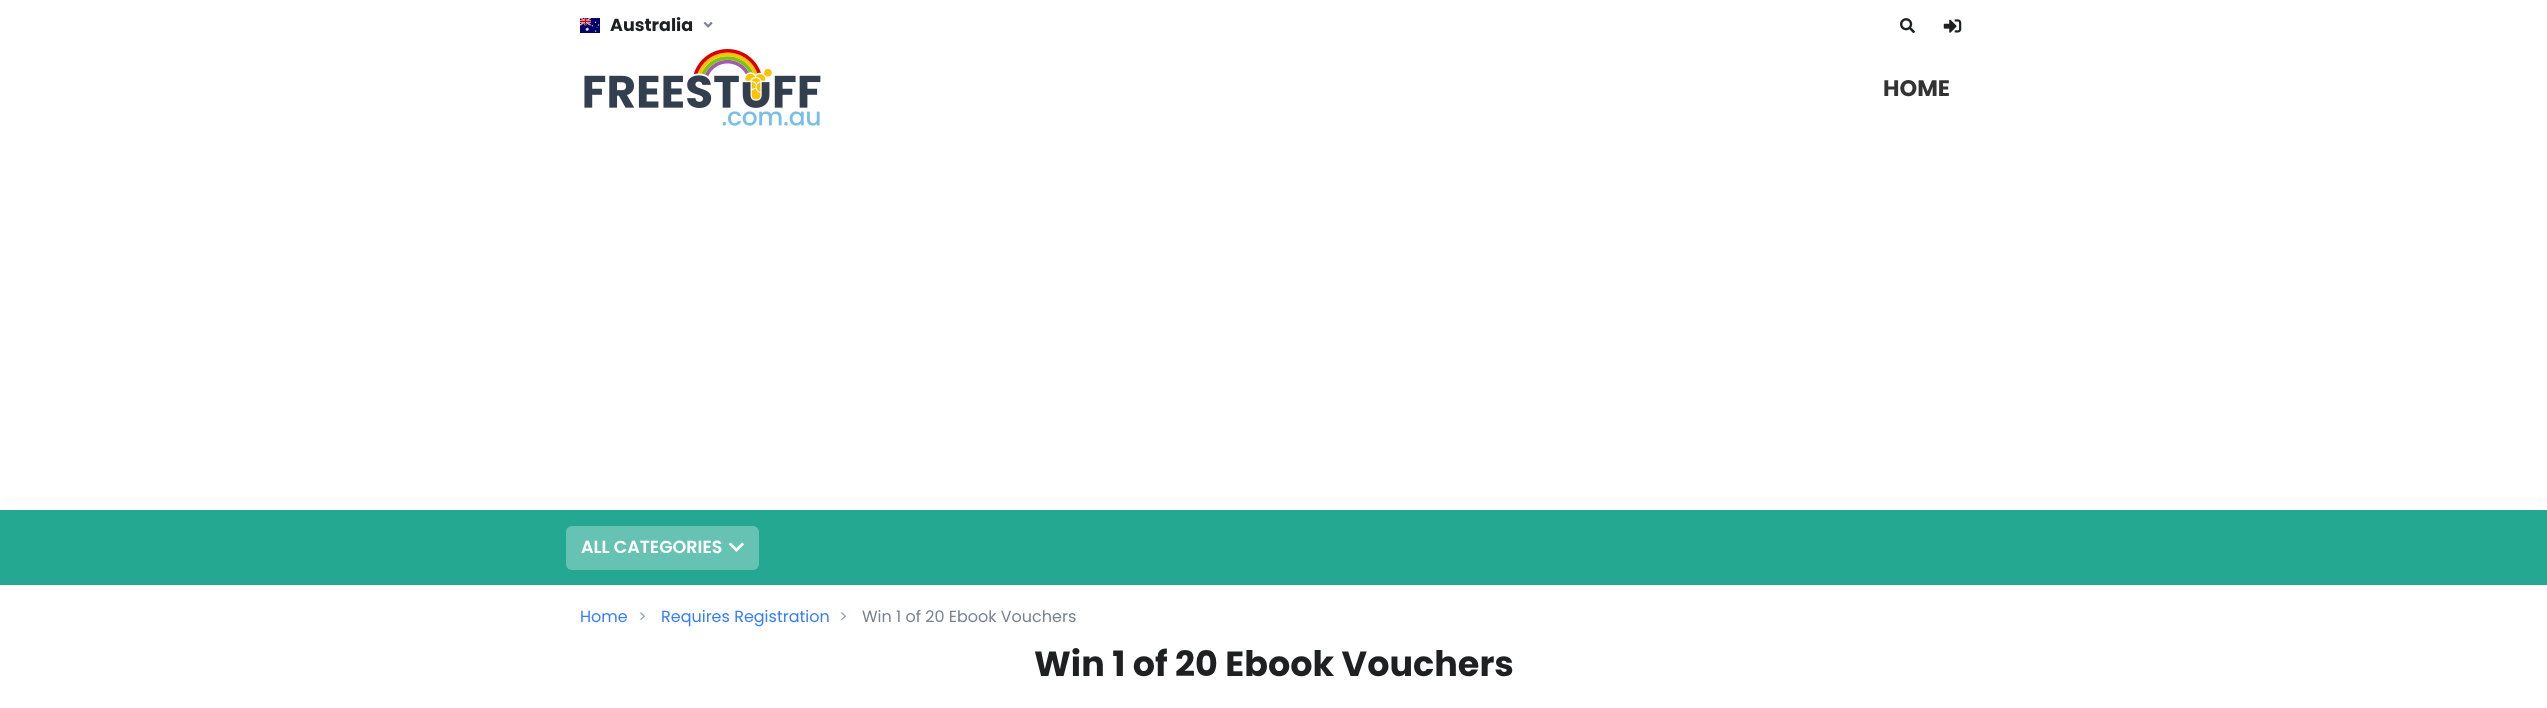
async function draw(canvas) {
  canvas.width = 2547
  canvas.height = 708
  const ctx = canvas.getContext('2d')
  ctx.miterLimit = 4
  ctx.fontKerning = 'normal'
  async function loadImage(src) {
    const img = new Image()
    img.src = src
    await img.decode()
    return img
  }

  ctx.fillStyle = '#fff'
  ctx.fillRect(0, 0, 2547, 708)
  ctx.fillStyle = '#24a891'
  ctx.fillRect(0, 510, 2547, 75)
  ctx.fillStyle = '#97a4af1a'
  ctx.filter = 'blur(6px)'
  ctx.beginPath()
  ctx.rect(0, 1, 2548, 498)
  ctx.fill()
  ctx.filter = 'none'
  ctx.fillStyle = '#fff'
  ctx.fillRect(0, 0, 2547, 498)
  ctx.drawImage(await loadImage('image0.png'), 580, 18, 20, 15)
  ctx.font = 'bold 17.5px Poppins'
  ctx.fillStyle = '#1e2022'
  ctx.fillText('Australia', 610, 31)
  ctx.drawImage(await loadImage('image1.png'), 703, 22, 10, 6)
  ctx.drawImage(await loadImage('image2.png'), 1900, 18, 15, 16)
  ctx.drawImage(await loadImage('image3.png'), 1943, 19, 19, 14)
  ctx.drawImage(await loadImage('image4.png'), 584, 49, 237, 77)
  ctx.font = 'bold 22.5px Poppins'
  ctx.fillStyle = '#333'
  ctx.fillText('HOME', 1883, 96)
  ctx.fillStyle = '#66c2b2'
  ctx.beginPath()
  ctx.roundRect(566, 526, 193, 44, 6)
  ctx.fill()
  ctx.font = '600 17.5px Poppins'
  ctx.fillStyle = '#fff'
  ctx.fillText('ALL CATEGORIES', 581, 553)
  ctx.drawImage(await loadImage('image5.png'), 729, 542, 15, 10)
  ctx.font = '16px Poppins'
  ctx.fillStyle = '#377dff'
  ctx.fillText('Home', 580, 622)
  ctx.fillStyle = '#97a4af'
  ctx.fillText('>', 638, 622)
  ctx.fillStyle = '#377dff'
  ctx.fillText('Requires Registration', 661, 622)
  ctx.fillStyle = '#97a4af'
  ctx.fillText('>', 839, 622)
  ctx.fillStyle = '#77838f'
  ctx.fillText('Win 1 of 20 Ebook Vouchers', 862, 622)
  ctx.font = 'bold 35px Poppins'
  ctx.fillStyle = '#1e2022'
  ctx.fillText('Win 1 of 20 Ebook Vouchers', 1034, 676)
}

draw(document.querySelector('canvas'))
